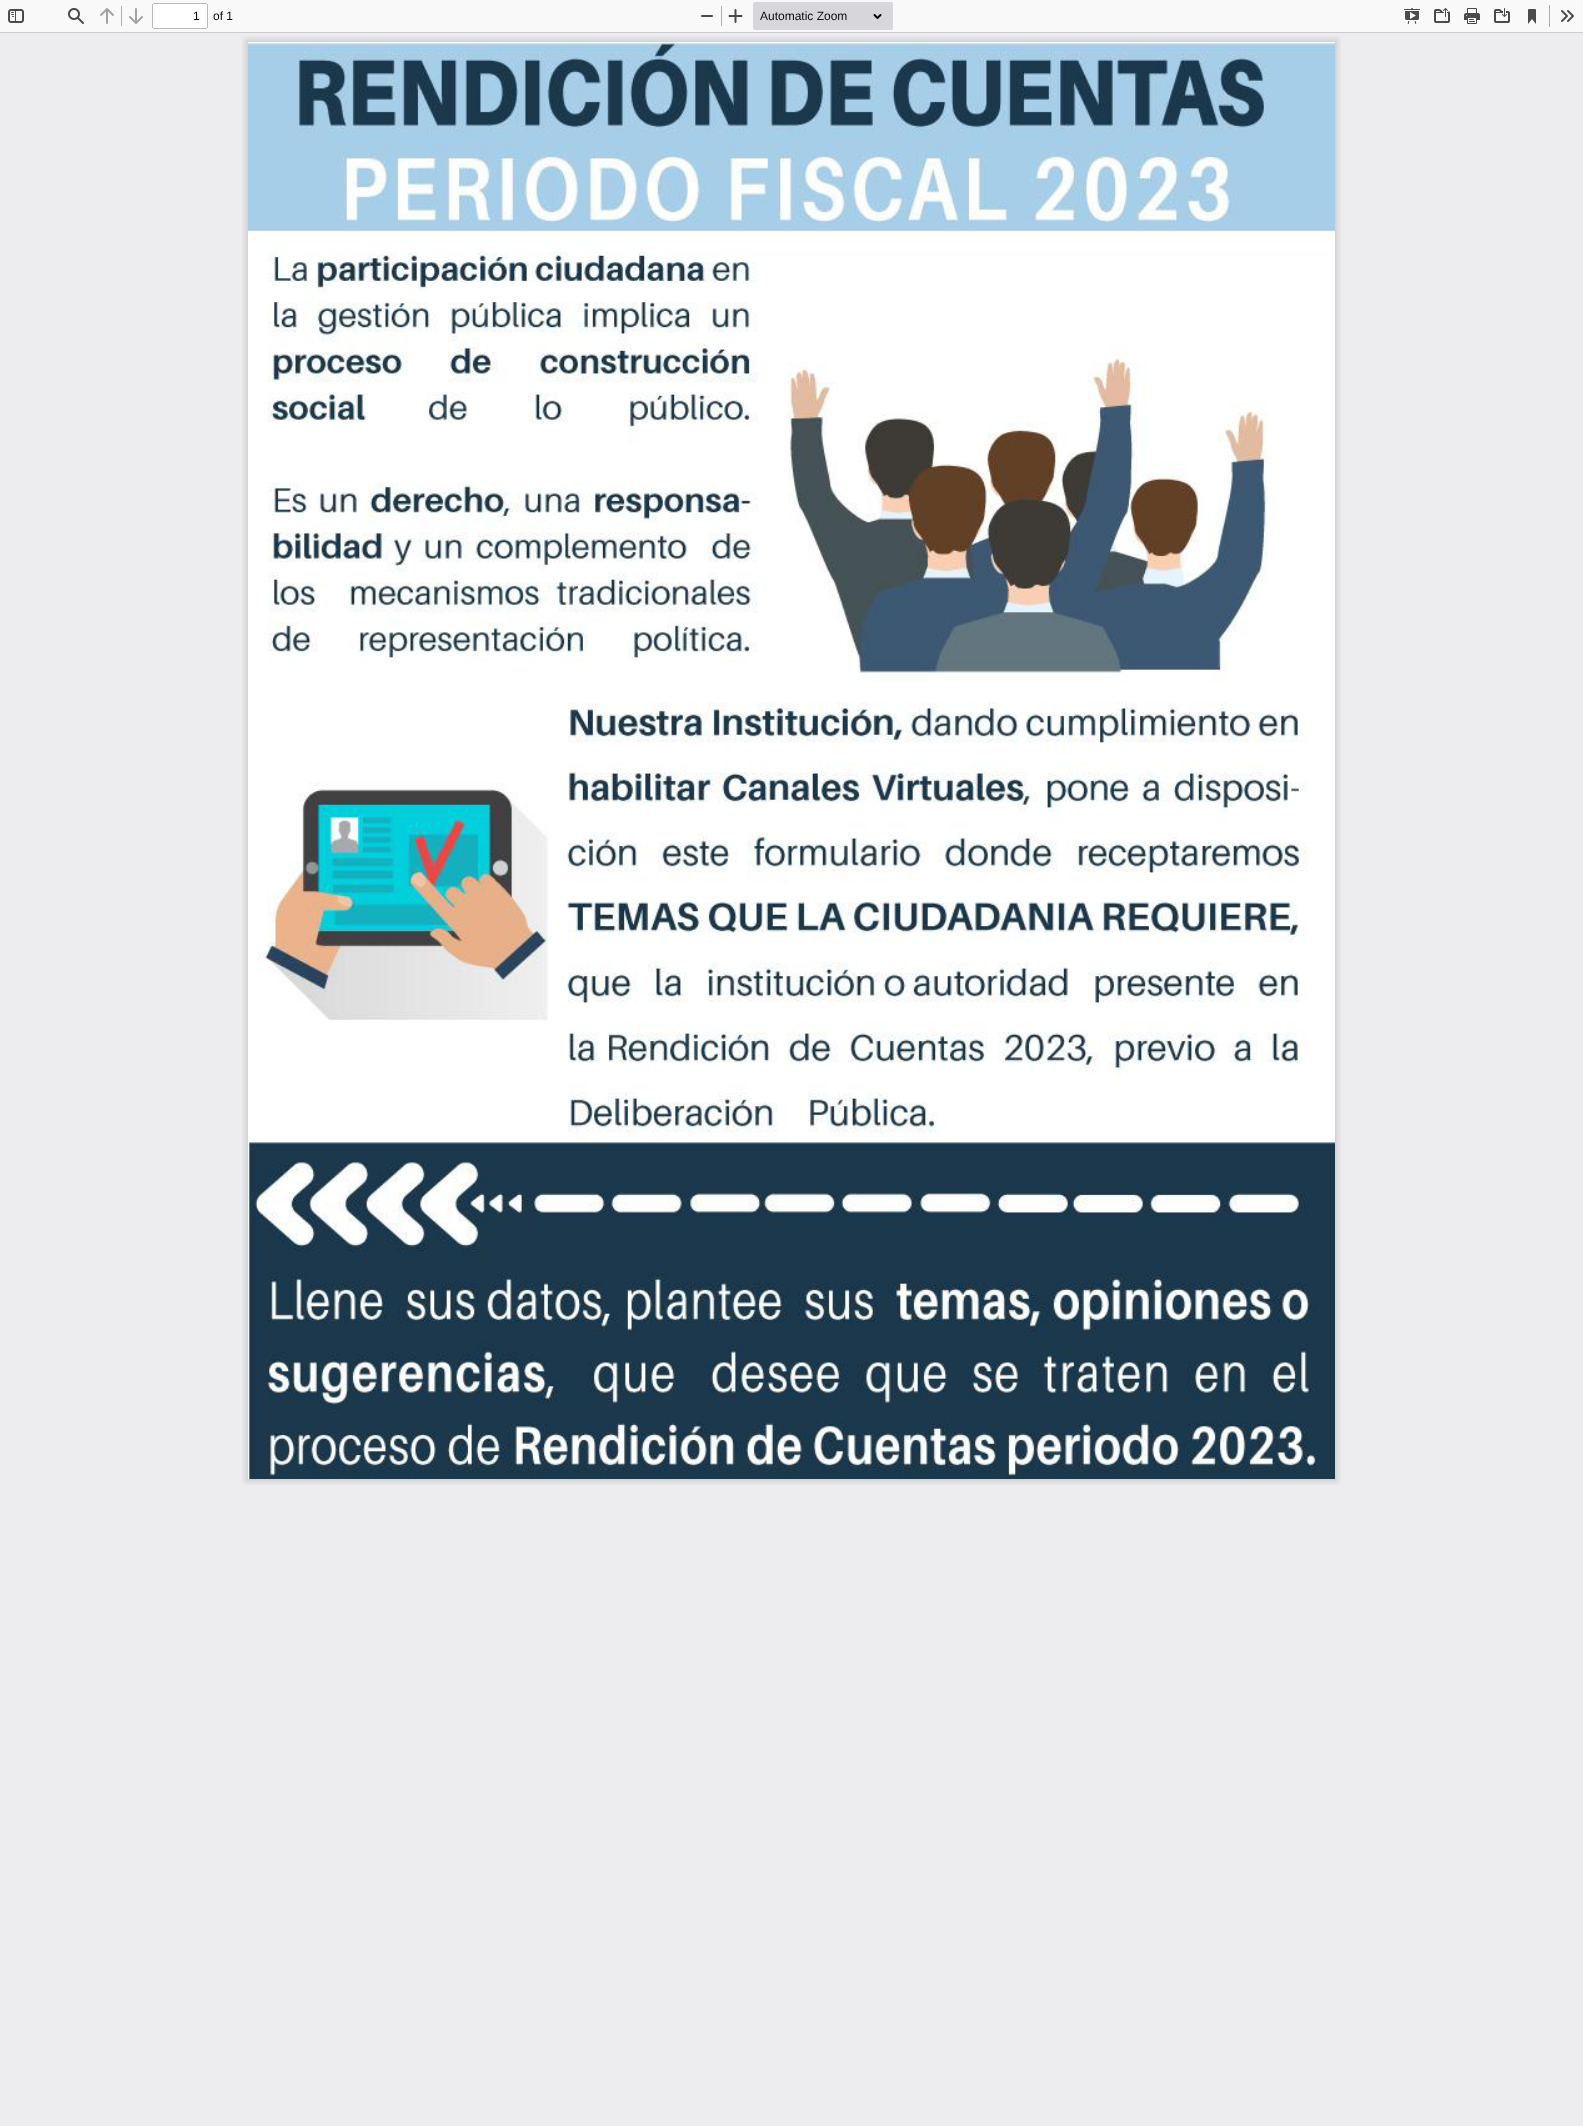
async function draw(canvas) {
  canvas.width = 1583
  canvas.height = 2126
  const ctx = canvas.getContext('2d')
  ctx.miterLimit = 4
  ctx.fontKerning = 'normal'
  async function loadImage(src) {
    const img = new Image()
    img.src = src
    await img.decode()
    return img
  }

  ctx.fillStyle = '#ededf0'
  ctx.fillRect(0, 0, 1583, 2126)
  ctx.fillStyle = '#ccc'
  ctx.fillRect(0, 32, 1583, 1)
  ctx.fillStyle = '#f9f9fa'
  ctx.fillRect(0, 0, 1583, 32)
  ctx.drawImage(await loadImage('image0.png'), 8, 9, 16, 14)
  ctx.drawImage(await loadImage('image1.png'), 68, 8, 16, 16)
  ctx.drawImage(await loadImage('image2.png'), 100, 8, 14, 16)
  ctx.fillStyle = '#aeaeaf'
  ctx.fillRect(121, 6, 1, 20)
  ctx.drawImage(await loadImage('image3.png'), 129, 8, 14, 16)
  ctx.fillStyle = '#fff'
  ctx.beginPath()
  ctx.roundRect(152.5, 3.5, 55, 25, 1.5)
  ctx.fill()
  ctx.strokeStyle = '#bbbbbc'
  ctx.stroke()
  ctx.font = '12px Liberation Sans'
  ctx.fillStyle = '#060606'
  ctx.fillText('1', 193, 20)
  ctx.fillStyle = '#0c0c0d'
  ctx.fillText('of 1', 213, 20)
  ctx.fillStyle = '#4b4b4b'
  ctx.beginPath()
  ctx.roundRect(701, 15, 12, 2, 1)
  ctx.fill()
  ctx.fillStyle = '#aeaeaf'
  ctx.fillRect(721, 6, 1, 20)
  ctx.drawImage(await loadImage('image4.png'), 728, 9, 15, 14)
  ctx.fillStyle = '#d7d7db'
  ctx.beginPath()
  ctx.roundRect(753, 2, 140, 28, 2)
  ctx.fill()
  ctx.fillStyle = '#0c0c0d'
  ctx.fillText('Automatic Zoom', 760, 20)
  ctx.drawImage(await loadImage('image5.png'), 873, 14, 9, 5)
  ctx.drawImage(await loadImage('image6.png'), 1404, 8, 16, 16)
  ctx.drawImage(await loadImage('image7.png'), 1434, 8, 16, 15)
  ctx.drawImage(await loadImage('image8.png'), 1464, 8, 16, 16)
  ctx.drawImage(await loadImage('image9.png'), 1494, 8, 16, 15)
  ctx.drawImage(await loadImage('image10.png'), 1528, 9, 8, 15)
  ctx.fillStyle = '#aeaeaf'
  ctx.fillRect(1549, 5, 1, 22)
  ctx.drawImage(await loadImage('image11.png'), 1561, 10, 13, 12)
  ctx.drawImage(await loadImage('image12.png'), 242, 36, 1099, 1449)
  ctx.drawImage(await loadImage('image13.png'), 248, 42, 1087, 1437)
}

draw(document.querySelector('canvas'))
